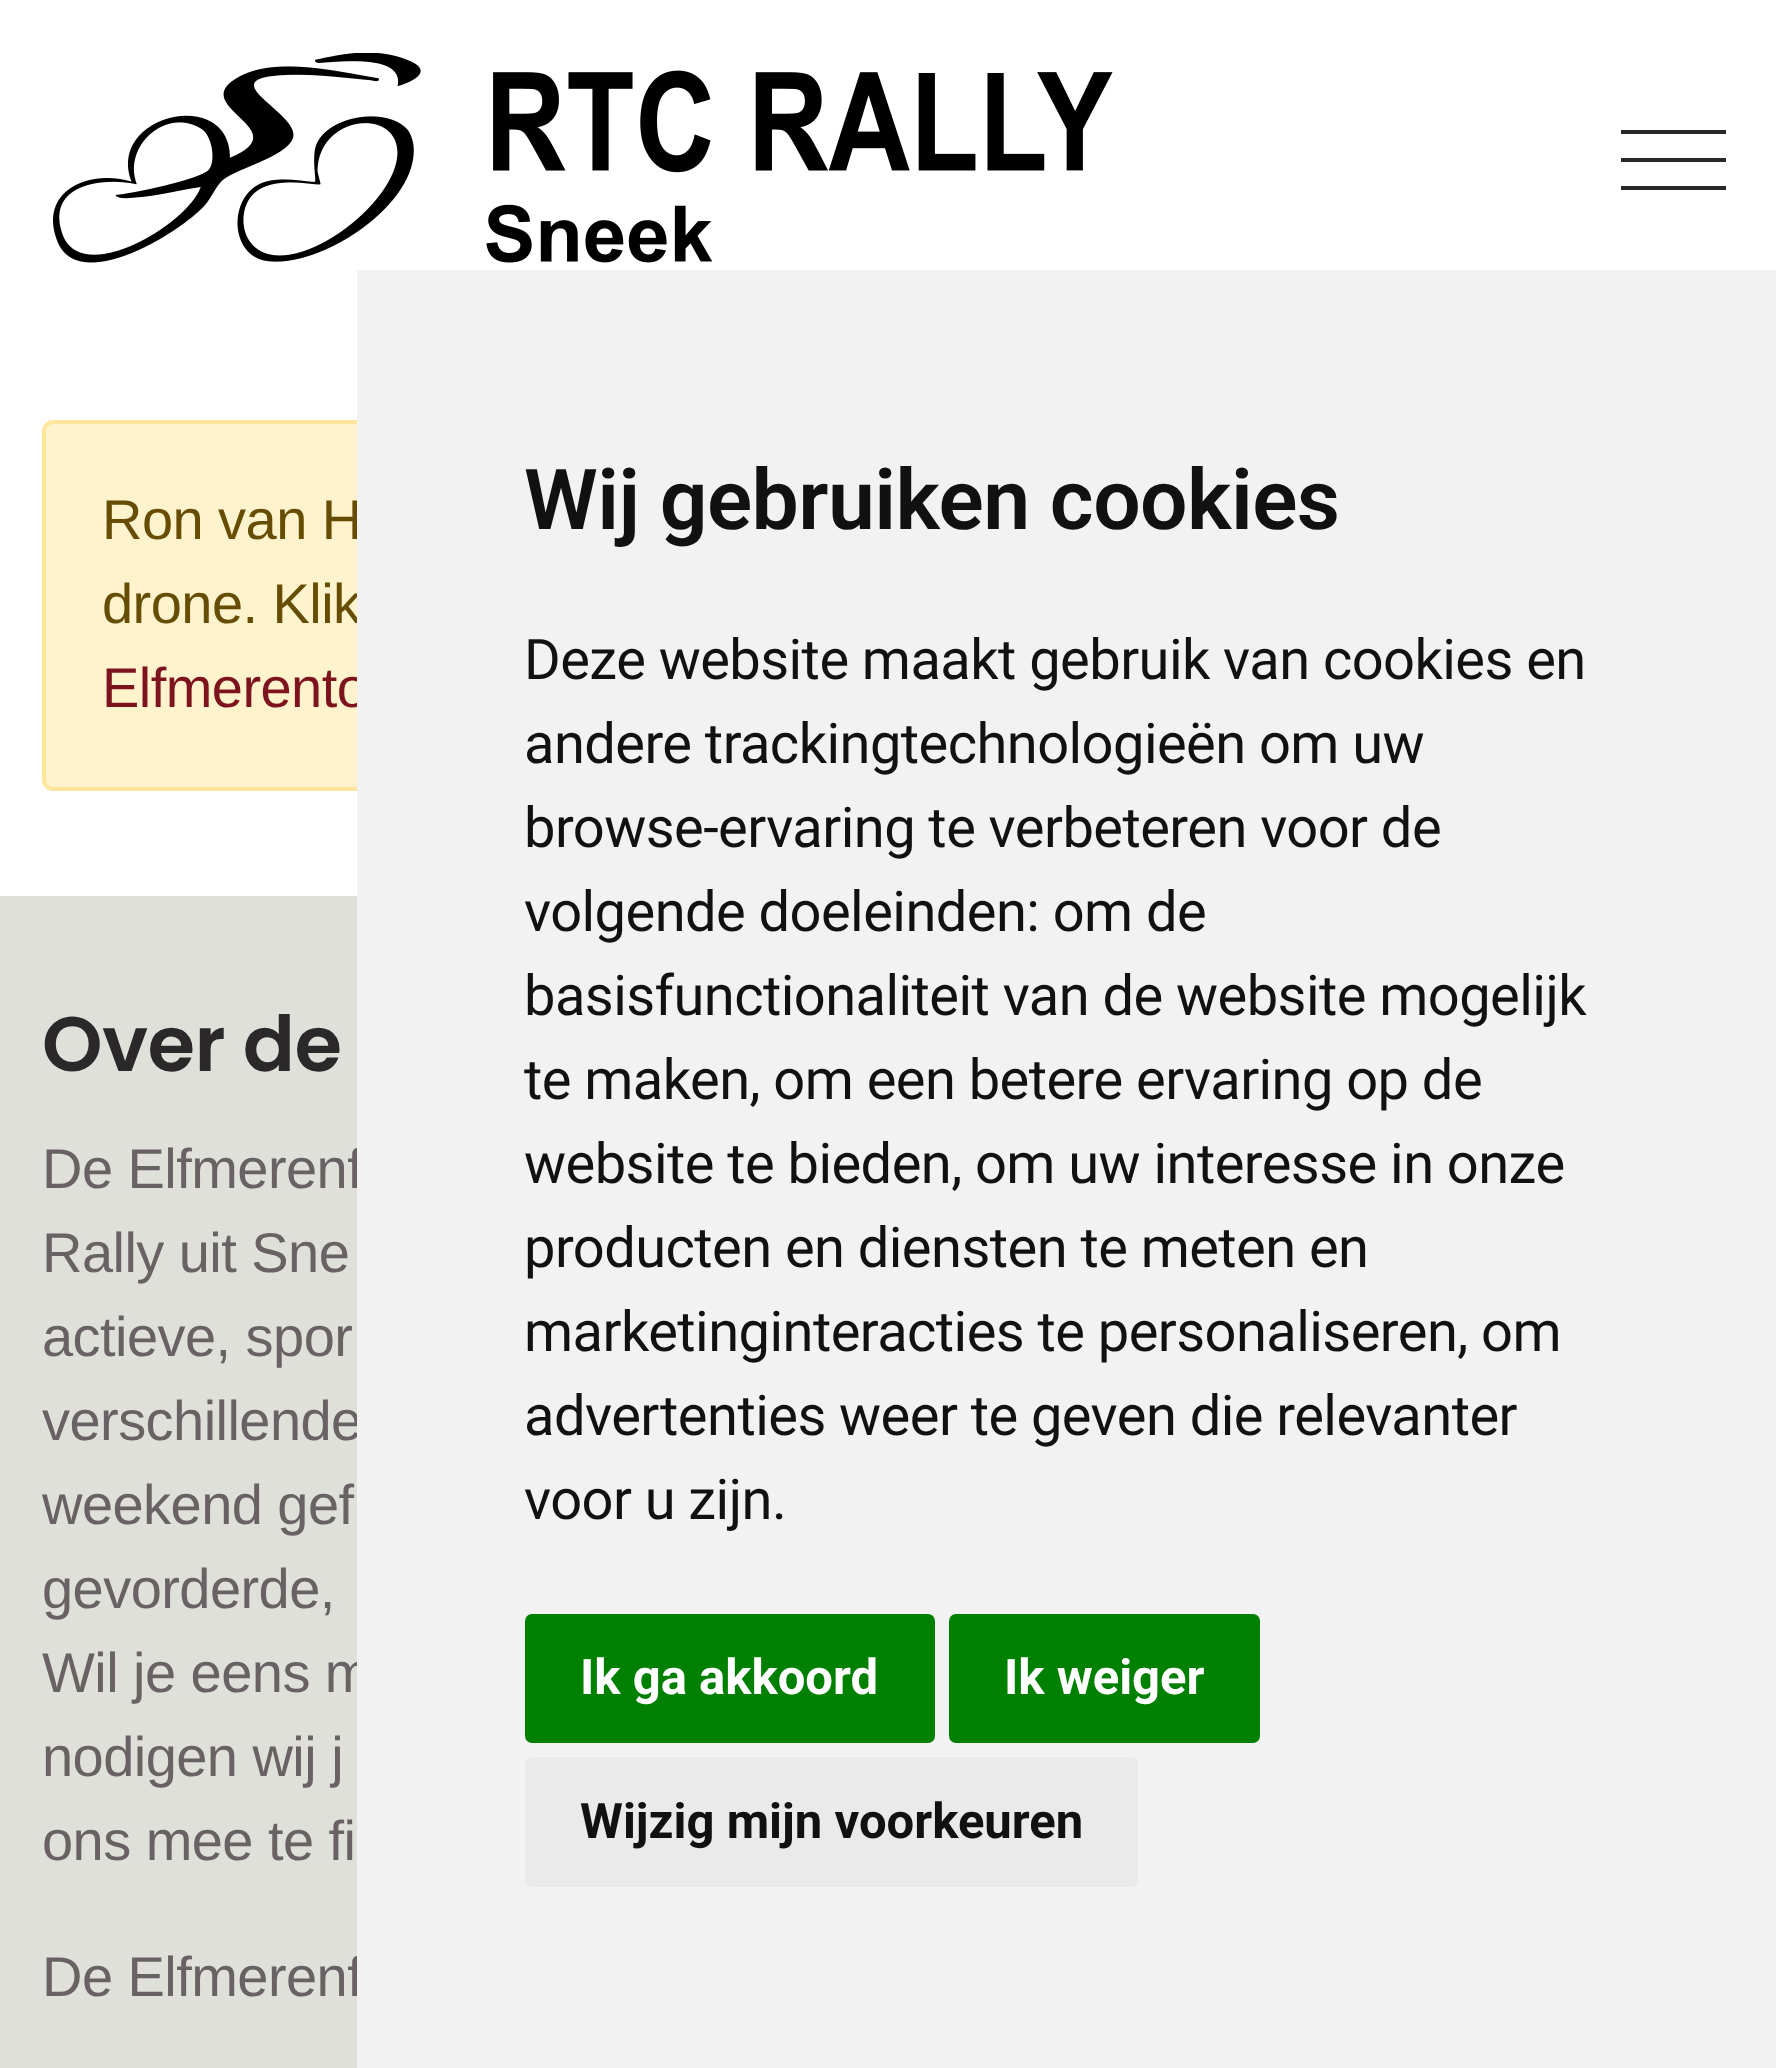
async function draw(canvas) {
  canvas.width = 1776
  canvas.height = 2068
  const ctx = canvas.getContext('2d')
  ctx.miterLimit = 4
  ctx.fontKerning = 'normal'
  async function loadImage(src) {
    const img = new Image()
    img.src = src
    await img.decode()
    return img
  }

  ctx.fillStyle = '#fff'
  ctx.fillRect(0, 0, 1776, 2068)
  ctx.drawImage(await loadImage('image0.png'), 53, 53, 1060, 210)
  ctx.fillStyle = '#2a2829'
  ctx.fillRect(1621, 158, 105, 4)
  ctx.fillRect(1621, 130, 105, 4)
  ctx.fillRect(1621, 186, 105, 4)
  ctx.fillStyle = '#fff3cd'
  ctx.beginPath()
  ctx.roundRect(44, 422, 1690, 367, 9)
  ctx.fill()
  ctx.strokeStyle = '#ffe69c'
  ctx.lineWidth = 4
  ctx.stroke()
  ctx.letterSpacing = '-0.55px'
  ctx.font = '56px Liberation Sans'
  ctx.fillStyle = '#664d03'
  ctx.fillText('Ron van H', 102, 539)
  ctx.fillText('drone. Klik', 102, 623)
  ctx.fillStyle = '#7d131d'
  ctx.fillText('Elfmerento', 102, 707)
  ctx.fillStyle = '#e0e0db'
  ctx.fillRect(0, 896, 357, 1172)
  ctx.font = '600 77px Poppins'
  ctx.fillStyle = '#2a2829'
  ctx.fillText('Over de', 42, 1071)
  ctx.font = '56px Liberation Sans'
  ctx.fillStyle = '#696265'
  ctx.fillText('De Elfmerenf', 42, 1188)
  ctx.fillText('Rally uit Sne', 42, 1272)
  ctx.fillText('actieve, spor', 42, 1356)
  ctx.fillText('verschillende', 42, 1440)
  ctx.fillText('weekend gef', 42, 1524)
  ctx.fillText('gevorderde,', 42, 1608)
  ctx.fillText('Wil je eens m', 42, 1692)
  ctx.fillText('nodigen wij j', 42, 1776)
  ctx.fillText('ons mee te fi', 42, 1860)
  ctx.fillText('De Elfmerenf', 42, 1996)
  ctx.fillStyle = '#f2f2f2'
  ctx.fillRect(357, 270, 1419, 1798)
  ctx.font = '600 84px Roboto'
  ctx.fillStyle = '#111'
  ctx.fillText('Wij gebruiken cookies', 524, 529)
  ctx.font = '56px Roboto'
  ctx.fillText('Deze website maakt gebruik van cookies en', 524, 679)
  ctx.fillText('andere trackingtechnologieën om uw', 524, 763)
  ctx.fillText('browse-ervaring te verbeteren voor de', 524, 847)
  ctx.fillText('volgende doeleinden: om de', 524, 931)
  ctx.fillText('basisfunctionaliteit van de website mogelijk', 524, 1015)
  ctx.fillText('te maken, om een betere ervaring op de', 524, 1099)
  ctx.fillText('website te bieden, om uw interesse in onze', 524, 1183)
  ctx.fillText('producten en diensten te meten en', 524, 1267)
  ctx.fillText('marketinginteracties te personaliseren, om', 524, 1351)
  ctx.fillText('advertenties weer te geven die relevanter', 524, 1435)
  ctx.fillText('voor u zijn.', 524, 1519)
  ctx.fillStyle = '#008000'
  ctx.beginPath()
  ctx.roundRect(525, 1614, 410, 129, 7)
  ctx.fill()
  ctx.letterSpacing = '0px'
  ctx.font = 'bold 49px Roboto'
  ctx.fillStyle = '#fff'
  ctx.fillText('Ik ga akkoord', 580, 1694)
  ctx.fillStyle = '#008000'
  ctx.beginPath()
  ctx.roundRect(949, 1614, 311, 129, 7)
  ctx.fill()
  ctx.fillStyle = '#fff'
  ctx.fillText('Ik weiger', 1004, 1694)
  ctx.fillStyle = '#eaeaea'
  ctx.beginPath()
  ctx.roundRect(525, 1757, 613, 130, 7)
  ctx.fill()
  ctx.fillStyle = '#111'
  ctx.fillText('Wijzig mijn voorkeuren', 580, 1838)
}

draw(document.querySelector('canvas'))
